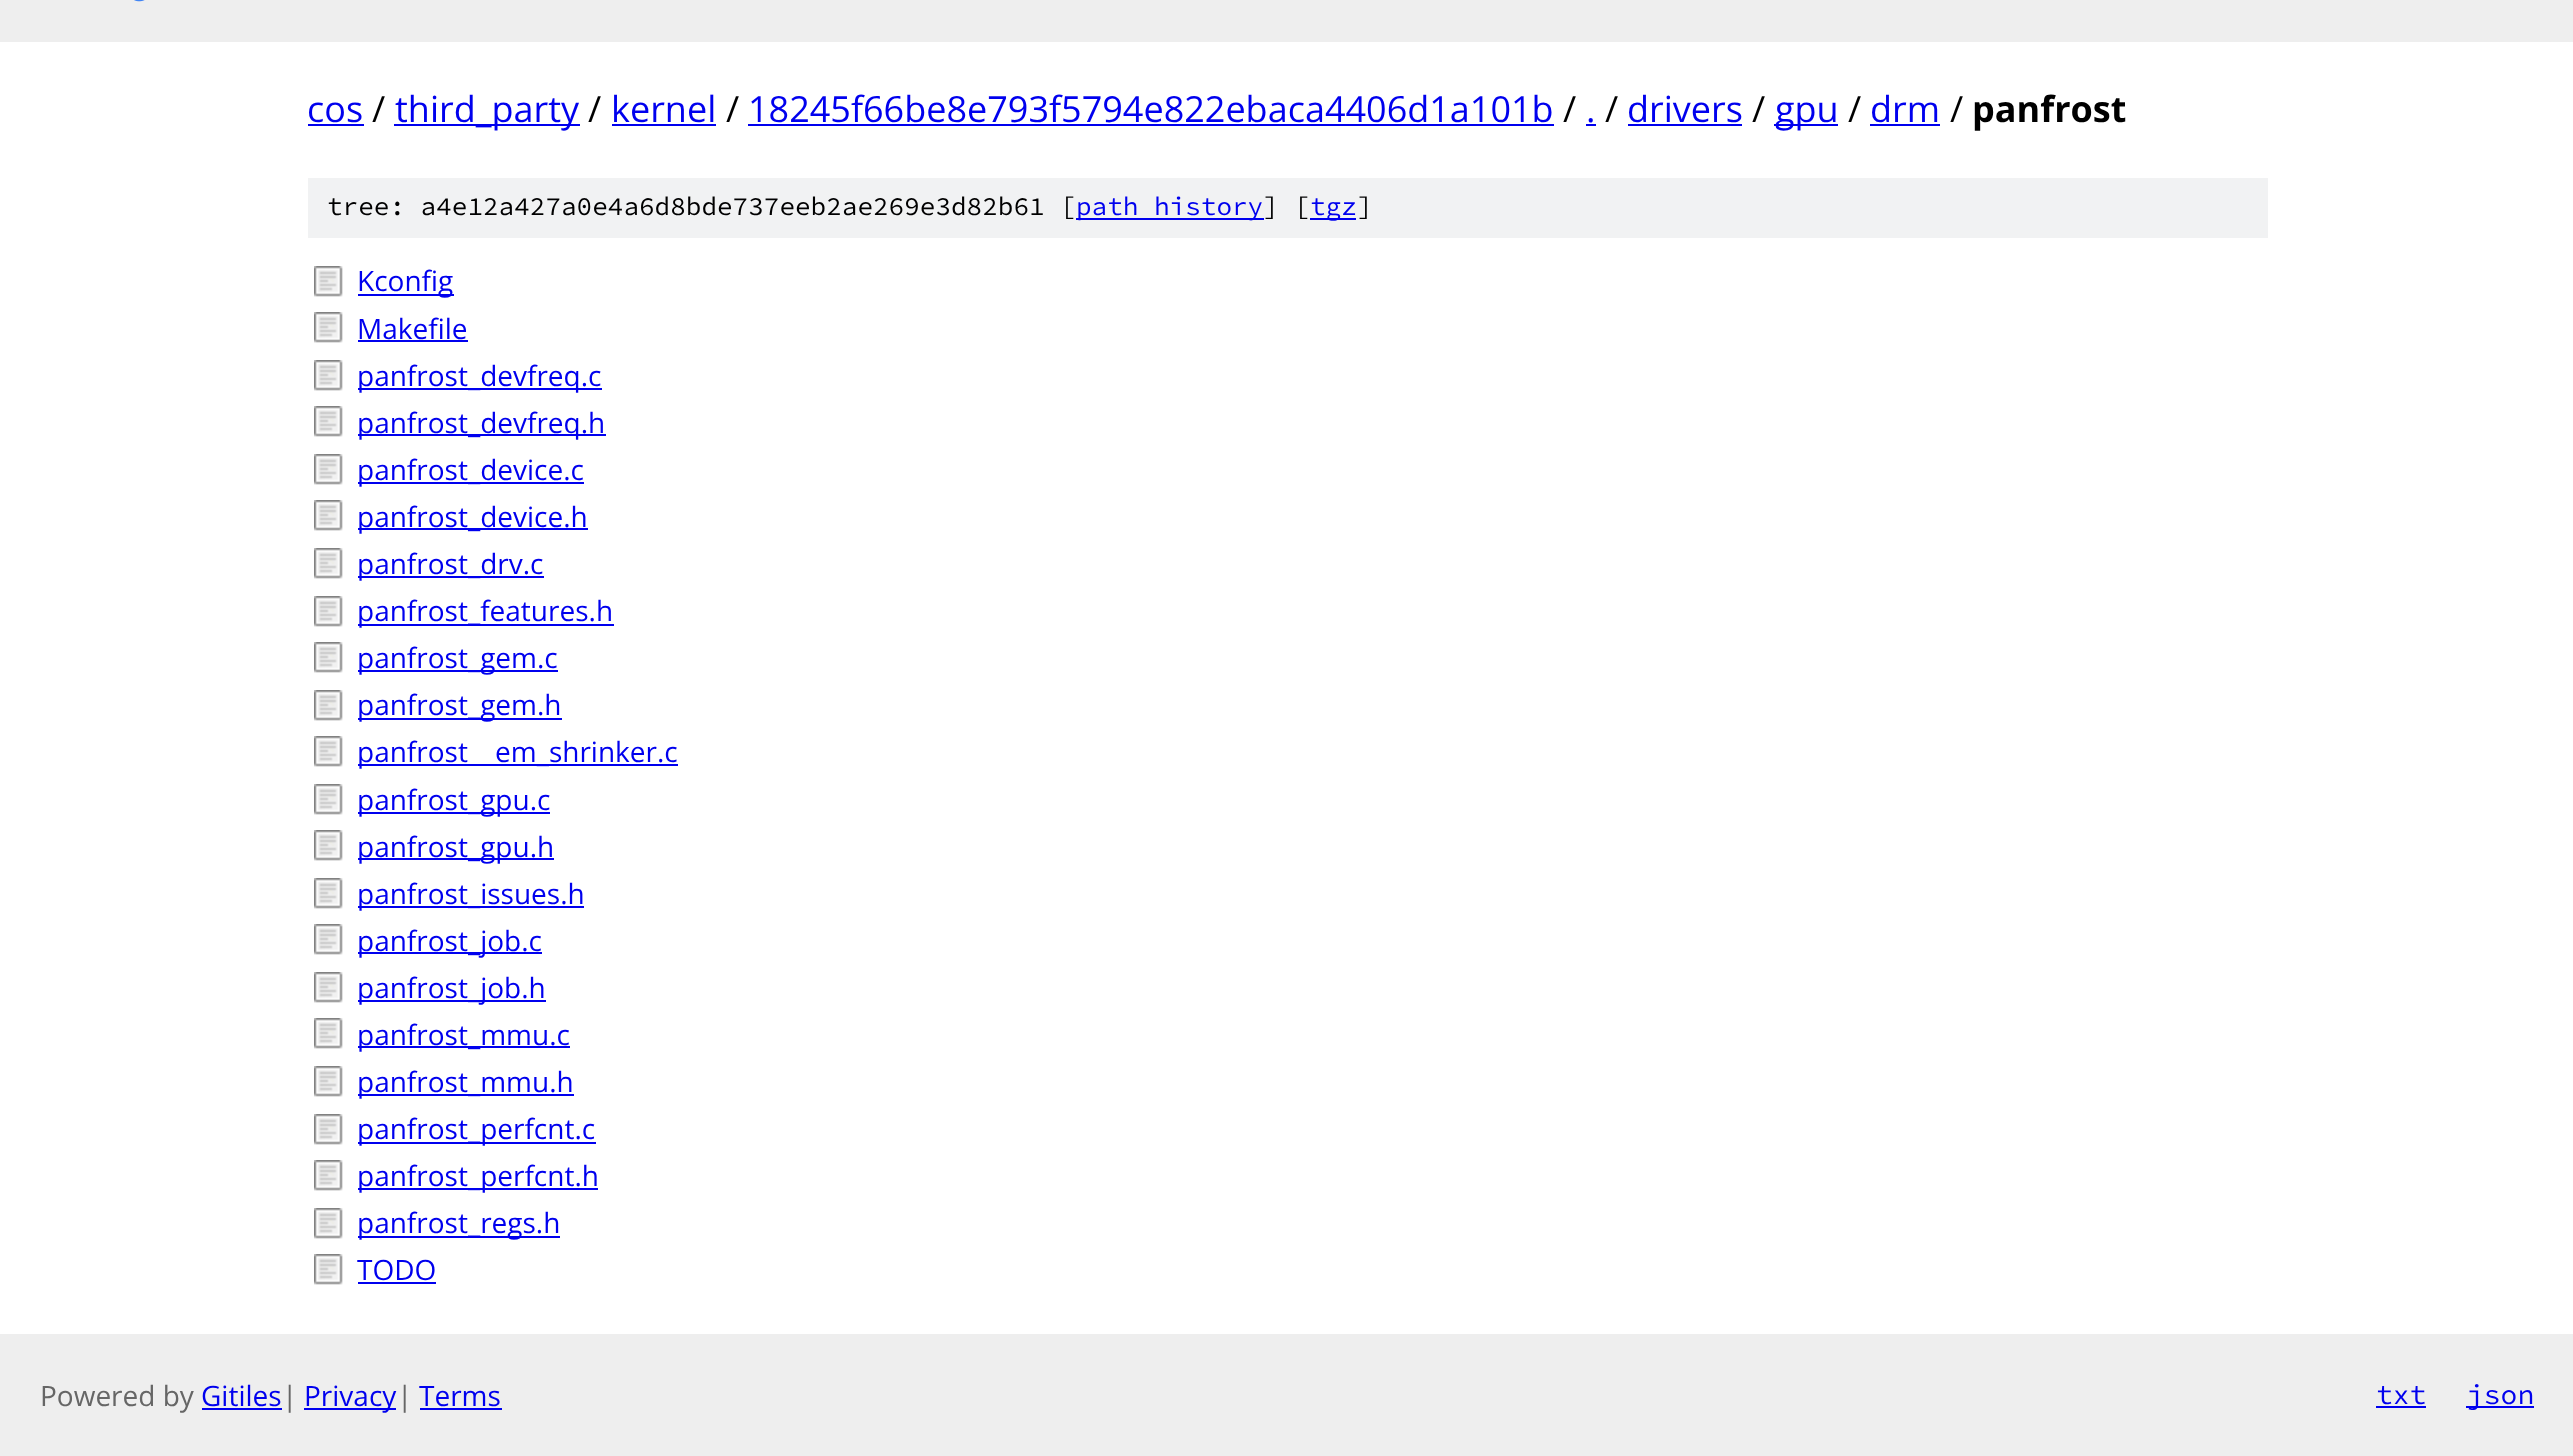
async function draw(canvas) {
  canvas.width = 2573
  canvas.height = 1456
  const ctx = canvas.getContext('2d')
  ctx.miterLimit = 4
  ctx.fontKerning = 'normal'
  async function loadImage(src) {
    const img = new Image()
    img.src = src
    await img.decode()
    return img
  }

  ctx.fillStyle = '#fff'
  ctx.fillRect(0, 0, 2573, 1456)
  ctx.fillStyle = '#eee'
  ctx.fillRect(0, 0, 2573, 42)
  ctx.drawImage(await loadImage('image0.png'), 134, 0, 11, 2)
  ctx.font = '36px Open Sans'
  ctx.fillStyle = '#00e'
  ctx.fillText('cos', 307, 122)
  ctx.fillRect(308, 124, 56, 2)
  ctx.fillStyle = '#000'
  ctx.fillText('/', 372, 122)
  ctx.fillStyle = '#00e'
  ctx.fillRect(394, 124, 186, 2)
  ctx.fillText('third_party', 395, 122)
  ctx.fillStyle = '#000'
  ctx.fillText('/', 588, 122)
  ctx.fillStyle = '#00e'
  ctx.fillText('kernel', 611, 122)
  ctx.fillRect(612, 124, 104, 2)
  ctx.fillStyle = '#000'
  ctx.fillText('/', 726, 122)
  ctx.fillStyle = '#00e'
  ctx.fillText('18245f66be8e793f5794e822ebaca4406d1a101b', 748, 122)
  ctx.fillRect(748, 124, 806, 2)
  ctx.fillStyle = '#000'
  ctx.fillText('/', 1563, 122)
  ctx.fillStyle = '#00e'
  ctx.fillText('.', 1586, 122)
  ctx.fillRect(1586, 124, 10, 2)
  ctx.fillStyle = '#000'
  ctx.fillText('/', 1605, 122)
  ctx.fillStyle = '#00e'
  ctx.fillText('drivers', 1627, 122)
  ctx.fillRect(1628, 124, 114, 2)
  ctx.fillStyle = '#000'
  ctx.fillText('/', 1752, 122)
  ctx.fillStyle = '#00e'
  ctx.fillRect(1774, 124, 64, 2)
  ctx.fillText('gpu', 1775, 122)
  ctx.fillStyle = '#000'
  ctx.fillText('/', 1848, 122)
  ctx.fillStyle = '#00e'
  ctx.fillText('drm', 1870, 122)
  ctx.fillRect(1870, 124, 70, 2)
  ctx.fillStyle = '#000'
  ctx.fillText('/', 1950, 122)
  ctx.font = 'bold 36px Open Sans'
  ctx.fillText('panfrost', 1972, 122)
  ctx.fillStyle = '#f1f2f3'
  ctx.fillRect(308, 178, 1960, 60)
  ctx.font = '200 26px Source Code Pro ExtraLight'
  ctx.fillStyle = '#000'
  ctx.fillText('tree: a4e12a427a0e4a6d8bde737eeb2ae269e3d82b61 [', 327, 215)
  ctx.fillStyle = '#00e'
  ctx.fillRect(1076, 218, 188, 2)
  ctx.fillText('path history', 1076, 215)
  ctx.fillStyle = '#000'
  ctx.fillText('] [', 1263, 215)
  ctx.fillStyle = '#00e'
  ctx.fillRect(1310, 218, 46, 2)
  ctx.fillText('tgz', 1310, 215)
  ctx.fillStyle = '#000'
  ctx.fillText(']', 1357, 215)
  ctx.drawImage(await loadImage('image1.png'), 314, 266, 29, 31)
  ctx.fillStyle = '#00e'
  ctx.fillRect(358, 294, 96, 2)
  ctx.font = '28px Open Sans'
  ctx.fillText('Kconfig', 357, 291)
  ctx.drawImage(await loadImage('image1.png'), 314, 312, 29, 31)
  ctx.fillText('Makefile', 357, 339)
  ctx.fillRect(358, 340, 110, 2)
  ctx.drawImage(await loadImage('image1.png'), 314, 360, 29, 31)
  ctx.fillRect(358, 388, 244, 2)
  ctx.fillText('panfrost_devfreq.c', 357, 386)
  ctx.drawImage(await loadImage('image1.png'), 314, 406, 29, 31)
  ctx.fillRect(358, 434, 248, 2)
  ctx.fillText('panfrost_devfreq.h', 357, 433)
  ctx.drawImage(await loadImage('image1.png'), 314, 454, 29, 31)
  ctx.fillRect(358, 482, 226, 2)
  ctx.fillText('panfrost_device.c', 357, 480)
  ctx.drawImage(await loadImage('image1.png'), 314, 500, 29, 31)
  ctx.fillRect(358, 528, 230, 2)
  ctx.fillText('panfrost_device.h', 357, 527)
  ctx.drawImage(await loadImage('image1.png'), 314, 548, 29, 31)
  ctx.fillRect(358, 576, 186, 2)
  ctx.fillText('panfrost_drv.c', 357, 574)
  ctx.drawImage(await loadImage('image1.png'), 314, 596, 29, 31)
  ctx.fillRect(358, 624, 256, 2)
  ctx.fillText('panfrost_features.h', 357, 621)
  ctx.drawImage(await loadImage('image1.png'), 314, 642, 29, 31)
  ctx.fillRect(358, 670, 200, 2)
  ctx.fillText('panfrost_gem.c', 357, 668)
  ctx.drawImage(await loadImage('image1.png'), 314, 690, 29, 31)
  ctx.fillRect(358, 718, 204, 2)
  ctx.fillText('panfrost_gem.h', 357, 715)
  ctx.drawImage(await loadImage('image1.png'), 314, 736, 29, 31)
  ctx.fillRect(358, 764, 320, 2)
  ctx.fillText('panfrost', 357, 762)
  ctx.fillText('em_shrinker.c', 495, 762)
  ctx.drawImage(await loadImage('image1.png'), 314, 784, 29, 31)
  ctx.fillRect(358, 812, 192, 2)
  ctx.fillText('panfrost_gpu.c', 357, 810)
  ctx.drawImage(await loadImage('image1.png'), 314, 830, 29, 31)
  ctx.fillRect(358, 858, 196, 2)
  ctx.fillText('panfrost_gpu.h', 357, 857)
  ctx.drawImage(await loadImage('image1.png'), 314, 878, 29, 31)
  ctx.fillRect(358, 906, 226, 2)
  ctx.fillText('panfrost_issues.h', 357, 904)
  ctx.drawImage(await loadImage('image1.png'), 314, 924, 29, 31)
  ctx.fillRect(358, 952, 184, 2)
  ctx.fillText('panfrost_job.c', 357, 951)
  ctx.drawImage(await loadImage('image1.png'), 314, 972, 29, 31)
  ctx.fillRect(358, 1000, 188, 2)
  ctx.fillText('panfrost_job.h', 357, 998)
  ctx.drawImage(await loadImage('image1.png'), 314, 1018, 29, 31)
  ctx.fillRect(358, 1046, 212, 2)
  ctx.fillText('panfrost_mmu.c', 357, 1045)
  ctx.drawImage(await loadImage('image1.png'), 314, 1066, 29, 31)
  ctx.fillRect(358, 1094, 216, 2)
  ctx.fillText('panfrost_mmu.h', 357, 1092)
  ctx.drawImage(await loadImage('image1.png'), 314, 1114, 29, 31)
  ctx.fillRect(358, 1142, 238, 2)
  ctx.fillText('panfrost_perfcnt.c', 357, 1139)
  ctx.drawImage(await loadImage('image1.png'), 314, 1160, 29, 31)
  ctx.fillRect(358, 1188, 240, 2)
  ctx.fillText('panfrost_perfcnt.h', 357, 1186)
  ctx.drawImage(await loadImage('image1.png'), 314, 1208, 29, 31)
  ctx.fillRect(358, 1236, 202, 2)
  ctx.fillText('panfrost_regs.h', 357, 1233)
  ctx.drawImage(await loadImage('image1.png'), 314, 1254, 29, 31)
  ctx.fillText('TODO', 357, 1280)
  ctx.fillRect(358, 1282, 78, 2)
  ctx.fillStyle = '#eee'
  ctx.fillRect(0, 1334, 2573, 122)
  ctx.fillStyle = '#666'
  ctx.fillText('Powered by', 40, 1406)
  ctx.fillStyle = '#00e'
  ctx.fillText('Gitiles', 201, 1406)
  ctx.fillRect(202, 1408, 80, 2)
  ctx.fillStyle = '#666'
  ctx.fillText('|', 282, 1406)
  ctx.fillStyle = '#00e'
  ctx.fillRect(304, 1408, 92, 2)
  ctx.fillText('Privacy', 304, 1406)
  ctx.fillStyle = '#666'
  ctx.fillText('|', 397, 1406)
  ctx.fillStyle = '#00e'
  ctx.fillText('Terms', 419, 1406)
  ctx.fillRect(420, 1408, 82, 2)
  ctx.font = '200 28px Source Code Pro ExtraLight'
  ctx.fillText('txt', 2376, 1404)
  ctx.fillRect(2376, 1406, 50, 2)
  ctx.fillRect(2466, 1406, 68, 2)
  ctx.fillText('json', 2467, 1404)
}

draw(document.querySelector('canvas'))
